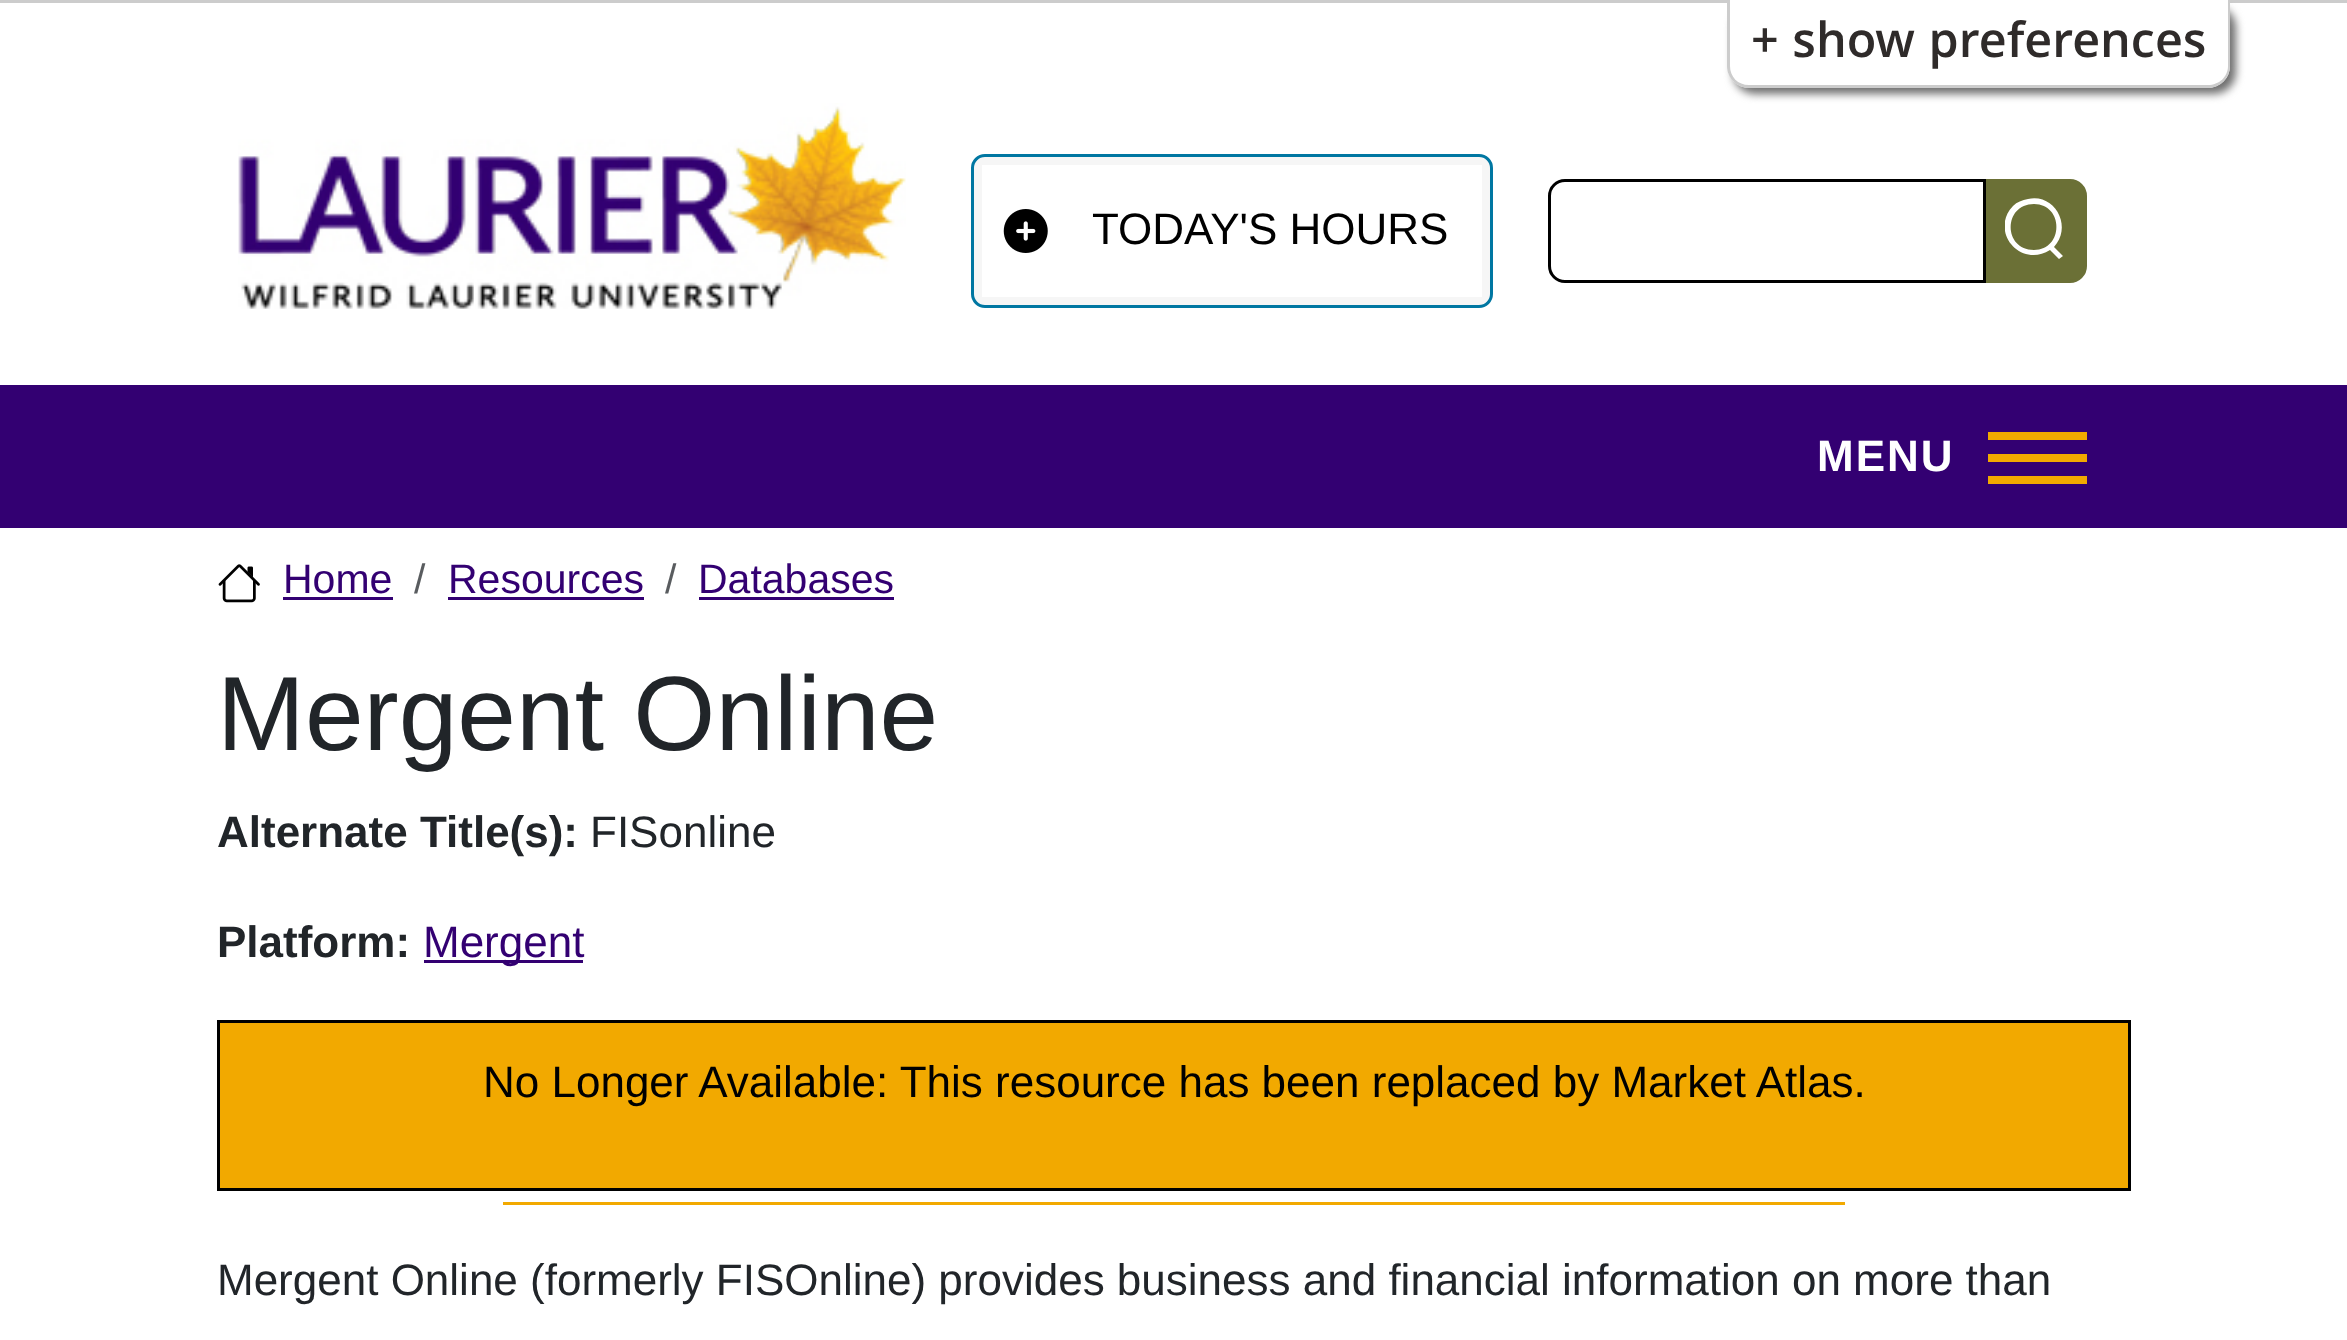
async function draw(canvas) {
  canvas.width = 2347
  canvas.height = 1340
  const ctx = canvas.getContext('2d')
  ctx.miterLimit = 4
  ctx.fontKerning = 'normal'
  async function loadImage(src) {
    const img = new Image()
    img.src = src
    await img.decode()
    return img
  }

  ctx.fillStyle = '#fff'
  ctx.fillRect(0, 0, 2347, 1340)
  ctx.fillStyle = '#ccc'
  ctx.fillRect(0, 0, 2347, 3)
  ctx.fillStyle = '#6f6f6f'
  ctx.filter = 'blur(4px)'
  ctx.beginPath()
  ctx.roundRect(1733, 6, 503, 88, 22)
  ctx.fill()
  ctx.filter = 'none'
  ctx.fillStyle = '#fff'
  ctx.beginPath()
  ctx.roundRect(1727, 0, 503, 88, [0, 0, 22, 22])
  ctx.fill()
  ctx.fillStyle = '#ccc'
  ctx.beginPath()
  ctx.moveTo(1727, 0)
  ctx.lineTo(2230, 0)
  ctx.lineTo(2230, 66)
  ctx.bezierCurveTo(2230, 78, 2220, 88, 2208, 88)
  ctx.lineTo(1749, 88)
  ctx.bezierCurveTo(1737, 88, 1727, 78, 1727, 66)
  ctx.closePath()
  ctx.moveTo(1730, 0)
  ctx.lineTo(2228, 0)
  ctx.lineTo(2228, 66)
  ctx.bezierCurveTo(2228, 77, 2219, 85, 2208, 85)
  ctx.lineTo(1749, 85)
  ctx.bezierCurveTo(1738, 85, 1730, 77, 1730, 66)
  ctx.closePath()
  ctx.fill('evenodd')
  ctx.wordSpacing = '1px'
  ctx.font = '600 48.5px Open Sans'
  ctx.fillStyle = '#2f2b2a'
  ctx.fillText('+ show preferences', 1751, 57)
  ctx.drawImage(await loadImage('image0.png'), 238, 103, 668, 206)
  ctx.fillStyle = '#f6f6f6'
  ctx.beginPath()
  ctx.roundRect(972.5, 155.5, 519, 151, 12.5)
  ctx.fill()
  ctx.strokeStyle = '#0077a2'
  ctx.lineWidth = 3
  ctx.stroke()
  ctx.fillStyle = '#fff'
  ctx.fillRect(982, 165, 500, 132)
  ctx.drawImage(await loadImage('image1.png'), 1003, 209, 45, 44)
  ctx.wordSpacing = '0px'
  ctx.font = '44px Liberation Sans'
  ctx.fillStyle = '#000'
  ctx.fillText('TODAY\'S HOURS', 1092, 244)
  ctx.beginPath()
  ctx.roundRect(1549.5, 180.5, 435, 101, [15.5, 0, 0, 15.5])
  ctx.strokeStyle = '#000'
  ctx.stroke()
  ctx.fillStyle = '#6b7036'
  ctx.beginPath()
  ctx.roundRect(1987.5, 180.5, 98, 101, [0, 15.5, 15.5, 0])
  ctx.fill()
  ctx.strokeStyle = '#6b7036'
  ctx.stroke()
  ctx.fillStyle = '#fff'
  ctx.beginPath()
  ctx.moveTo(2005, 231)
  ctx.lineTo(2005, 221)
  ctx.bezierCurveTo(2006, 216, 2008, 211, 2013, 206)
  ctx.bezierCurveTo(2017, 202, 2022, 200, 2028, 199)
  ctx.bezierCurveTo(2055, 193, 2073, 227, 2054, 247)
  ctx.lineTo(2063, 256)
  ctx.lineTo(2059, 259)
  ctx.lineTo(2050, 250)
  ctx.bezierCurveTo(2030, 263, 2008, 249, 2005, 231)
  ctx.closePath()
  ctx.moveTo(2034, 250)
  ctx.bezierCurveTo(2064, 250, 2064, 204, 2034, 204)
  ctx.bezierCurveTo(2003, 204, 2003, 250, 2034, 250)
  ctx.closePath()
  ctx.fill('evenodd')
  ctx.fillStyle = '#330072'
  ctx.fillRect(0, 385, 2347, 143)
  ctx.letterSpacing = '2px'
  ctx.font = 'bold 44px Liberation Sans'
  ctx.fillStyle = '#fff'
  ctx.fillText('MENU', 1817, 471)
  ctx.fillStyle = '#f2a900'
  ctx.fillRect(1988, 454, 99, 8)
  ctx.fillRect(1988, 432, 99, 8)
  ctx.fillRect(1988, 476, 99, 8)
  ctx.drawImage(await loadImage('image2.png'), 218, 564, 42, 39)
  ctx.letterSpacing = '0px'
  ctx.font = '41px Liberation Sans'
  ctx.fillStyle = '#330072'
  ctx.fillText('Home', 283, 593)
  ctx.fillRect(283, 597, 110, 3)
  ctx.fillStyle = '#595c5f'
  ctx.fillText('/', 414, 593)
  ctx.fillStyle = '#330072'
  ctx.fillText('Resources', 448, 593)
  ctx.fillRect(448, 597, 196, 3)
  ctx.fillStyle = '#595c5f'
  ctx.fillText('/', 665, 593)
  ctx.fillStyle = '#330072'
  ctx.fillText('Databases', 698, 593)
  ctx.fillRect(699, 597, 195, 3)
  ctx.font = '105.5px Liberation Sans'
  ctx.fillStyle = '#212529'
  ctx.fillText('Mergent Online', 217, 750)
  ctx.font = 'bold 44px Liberation Sans'
  ctx.fillText('Alternate Title(s):', 217, 847)
  ctx.font = '44px Liberation Sans'
  ctx.fillText('FISonline', 590, 847)
  ctx.font = 'bold 44px Liberation Sans'
  ctx.fillText('Platform:', 217, 957)
  ctx.fillStyle = '#330072'
  ctx.fillRect(424, 960, 159, 3)
  ctx.font = '44px Liberation Sans'
  ctx.fillText('Mergent', 423, 957)
  ctx.fillStyle = '#f2a900'
  ctx.beginPath()
  ctx.rect(218.5, 1021.5, 1911, 168)
  ctx.fill()
  ctx.strokeStyle = '#000'
  ctx.stroke()
  ctx.fillStyle = '#000'
  ctx.fillText('No Longer Available: This resource has been replaced by Market Atlas.', 483, 1097)
  ctx.fillStyle = '#f2a900'
  ctx.fillRect(503, 1202, 1342, 3)
  ctx.fillStyle = '#212529'
  ctx.fillText('Mergent Online (formerly FISOnline) provides business and financial information on more than', 217, 1295)
}

draw(document.querySelector('canvas'))
